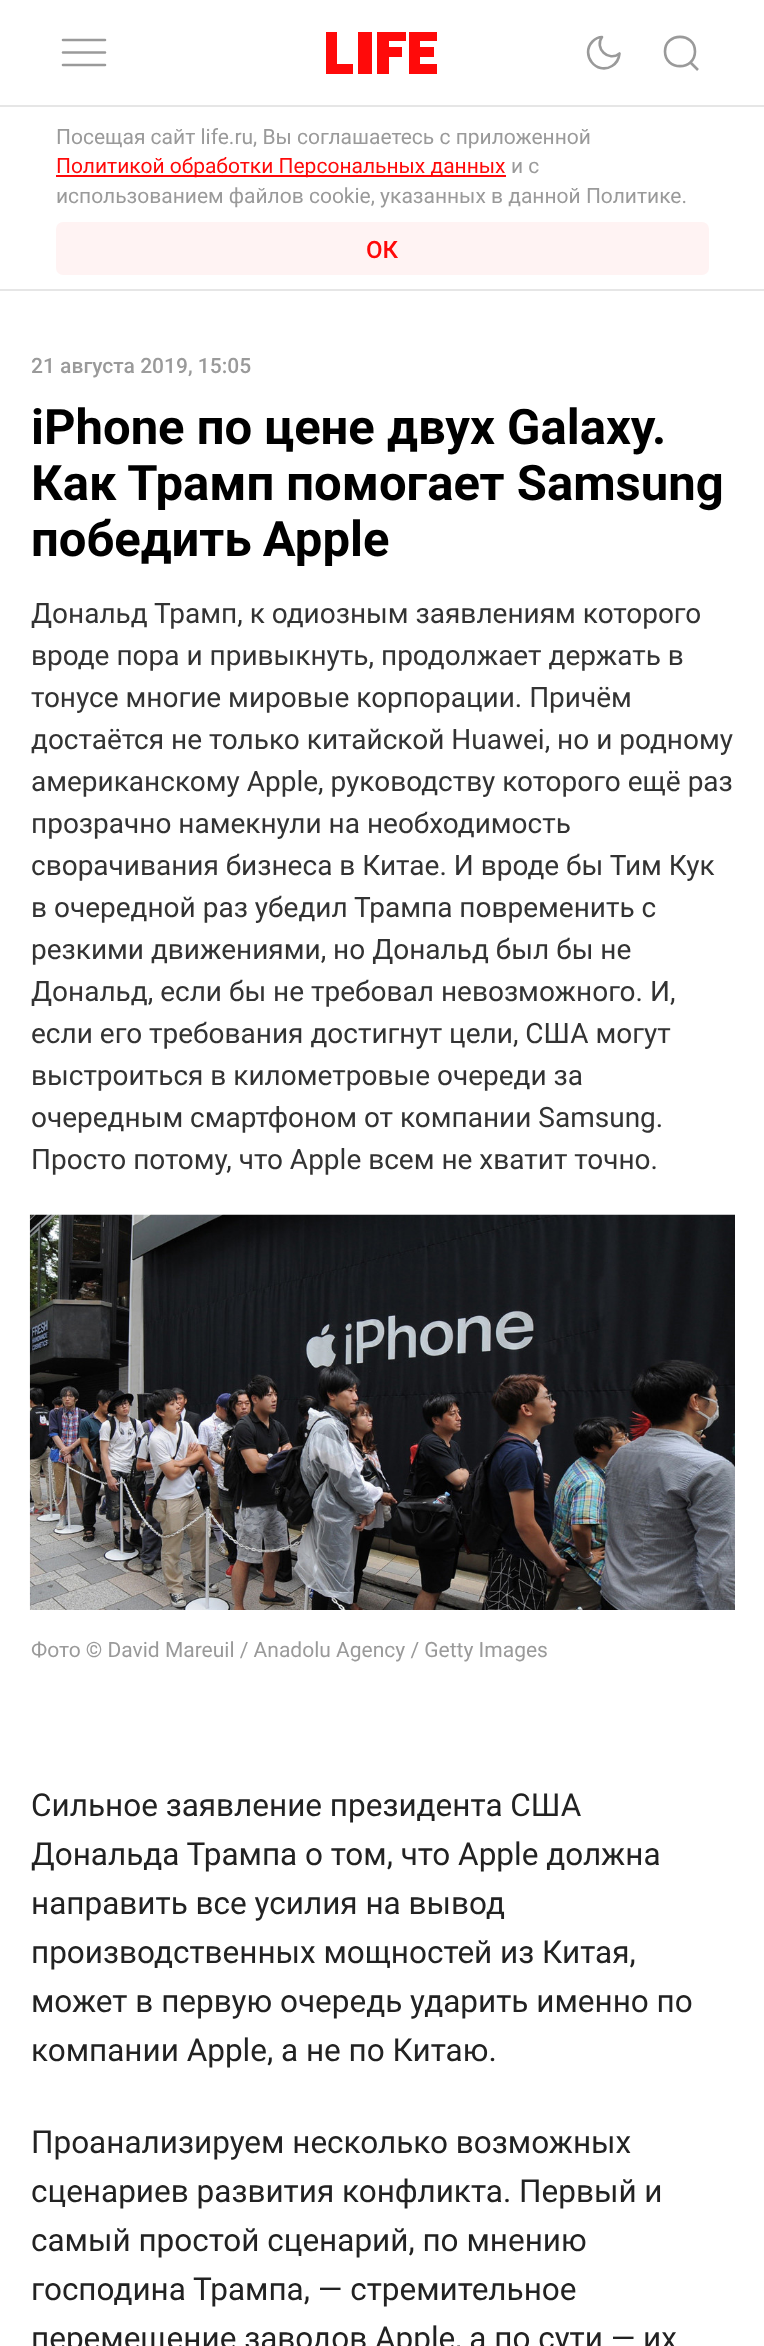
async function draw(canvas) {
  canvas.width = 764
  canvas.height = 2346
  const ctx = canvas.getContext('2d')
  ctx.miterLimit = 4
  ctx.fontKerning = 'normal'
  async function loadImage(src) {
    const img = new Image()
    img.src = src
    await img.decode()
    return img
  }

  ctx.fillStyle = '#fff'
  ctx.fillRect(0, 0, 764, 2346)
  ctx.fillStyle = '#e6e6e6'
  ctx.fillRect(0, 105, 764, 2)
  ctx.beginPath()
  ctx.moveTo(63, 52.5)
  ctx.lineTo(105, 52.5)
  ctx.moveTo(63, 65)
  ctx.lineTo(105, 65)
  ctx.moveTo(63, 40)
  ctx.lineTo(105, 40)
  ctx.strokeStyle = '#9a9a9a'
  ctx.lineWidth = 2.6
  ctx.lineCap = 'round'
  ctx.stroke()
  ctx.fillStyle = '#ff0a0a'
  ctx.beginPath()
  ctx.moveTo(337, 32)
  ctx.lineTo(326, 32)
  ctx.lineTo(326, 74)
  ctx.lineTo(353, 74)
  ctx.lineTo(353, 64)
  ctx.lineTo(337, 64)
  ctx.closePath()
  ctx.moveTo(358, 74)
  ctx.lineTo(372, 74)
  ctx.lineTo(372, 32)
  ctx.lineTo(358, 32)
  ctx.closePath()
  ctx.moveTo(377, 74)
  ctx.lineTo(389, 74)
  ctx.lineTo(389, 57)
  ctx.lineTo(402, 57)
  ctx.lineTo(402, 47)
  ctx.lineTo(389, 47)
  ctx.lineTo(389, 41)
  ctx.lineTo(406, 41)
  ctx.lineTo(406, 32)
  ctx.lineTo(377, 32)
  ctx.closePath()
  ctx.moveTo(409, 32)
  ctx.lineTo(409, 74)
  ctx.lineTo(437, 74)
  ctx.lineTo(437, 64)
  ctx.lineTo(420, 64)
  ctx.lineTo(420, 57)
  ctx.lineTo(434, 57)
  ctx.lineTo(434, 47)
  ctx.lineTo(420, 47)
  ctx.lineTo(420, 41)
  ctx.lineTo(437, 41)
  ctx.lineTo(437, 32)
  ctx.closePath()
  ctx.fill()
  ctx.beginPath()
  ctx.moveTo(619.5, 53.5)
  ctx.bezierCurveTo(619, 58.5, 616, 63.5, 612, 66)
  ctx.bezierCurveTo(596.5, 75.5, 580, 54.5, 592.5, 41.5)
  ctx.bezierCurveTo(595, 39, 598.5, 37, 602, 37)
  ctx.bezierCurveTo(594, 48, 608.5, 62.5, 619.5, 53.5)
  ctx.closePath()
  ctx.lineJoin = 'round'
  ctx.stroke()
  ctx.beginPath()
  ctx.moveTo(691, 63)
  ctx.lineTo(698, 70)
  ctx.moveTo(695, 51.5)
  ctx.bezierCurveTo(695, 71, 665, 71, 665, 51.5)
  ctx.bezierCurveTo(665, 32, 695, 32, 695, 51.5)
  ctx.closePath()
  ctx.lineCap = 'butt'
  ctx.lineJoin = 'miter'
  ctx.stroke()
  ctx.fillStyle = '#e6e6e6'
  ctx.fillRect(0, 289, 764, 2)
  ctx.font = '21px Roboto'
  ctx.fillStyle = '#9a9a9a'
  ctx.fillText('Посещая сайт life.ru, Вы соглашаетесь с приложенной', 56, 144)
  ctx.fillStyle = '#ff0a0a'
  ctx.fillRect(56, 175, 450, 2)
  ctx.fillText('Политикой обработки Персональных данных', 56, 173)
  ctx.fillStyle = '#9a9a9a'
  ctx.fillText('и с', 511, 173)
  ctx.fillText('использованием файлов cookie, указанных в данной Политике.', 56, 203)
  ctx.fillStyle = '#fff3f3'
  ctx.beginPath()
  ctx.roundRect(56, 222, 653, 53, 7)
  ctx.fill()
  ctx.font = '500 24px Roboto'
  ctx.fillStyle = '#ff0a0a'
  ctx.fillText('ОК', 366, 258)
  ctx.font = '500 21px Roboto'
  ctx.fillStyle = '#9a9a9a'
  ctx.fillText('21 августа 2019, 15:05', 31, 373)
  ctx.font = 'bold 49px Roboto'
  ctx.fillStyle = '#000'
  ctx.fillText('iPhone по цене двух Galaxy.', 31, 444)
  ctx.fillText('Как Трамп помогает Samsung', 31, 500)
  ctx.wordSpacing = '-1px'
  ctx.fillText('победить Apple', 31, 556)
  ctx.wordSpacing = '0px'
  ctx.font = '28px Roboto'
  ctx.fillStyle = '#333'
  ctx.fillText('Дональд Трамп, к одиозным заявлениям которого', 31, 623)
  ctx.fillText('вроде пора и привыкнуть, продолжает держать в', 31, 665)
  ctx.fillText('тонусе многие мировые корпорации. Причём', 31, 707)
  ctx.fillText('достаётся не только китайской Huawei, но и родному', 31, 749)
  ctx.fillText('американскому Apple, руководству которого ещё раз', 31, 791)
  ctx.fillText('прозрачно намекнули на необходимость', 31, 833)
  ctx.fillText('сворачивания бизнеса в Китае. И вроде бы Тим Кук', 31, 875)
  ctx.fillText('в очередной раз убедил Трампа повременить с', 31, 917)
  ctx.fillText('резкими движениями, но Дональд был бы не', 31, 959)
  ctx.fillText('Дональд, если бы не требовал невозможного. И,', 31, 1001)
  ctx.fillText('если его требования достигнут цели, США могут', 31, 1043)
  ctx.fillText('выстроиться в километровые очереди за', 31, 1085)
  ctx.fillText('очередным смартфоном от компании Samsung.', 31, 1127)
  ctx.fillText('Просто потому, что Apple всем не хватит точно.', 31, 1169)
  ctx.drawImage(await loadImage('image0.png'), 29, 1214, 706, 396)
  ctx.font = '21px Roboto'
  ctx.fillStyle = '#9a9a9a'
  ctx.fillText('Фото © David Mareuil / Anadolu Agency / Getty Images', 31, 1657)
  ctx.font = '31.5px Roboto'
  ctx.fillStyle = '#222'
  ctx.fillText('Сильное заявление президента США', 31, 1816)
  ctx.fillText('Дональда Трампа о том, что Apple должна', 31, 1865)
  ctx.fillText('направить все усилия на вывод', 31, 1914)
  ctx.fillText('производственных мощностей из Китая,', 31, 1963)
  ctx.fillText('может в первую очередь ударить именно по', 31, 2012)
  ctx.fillText('компании Apple, а не по Китаю.', 31, 2061)
  ctx.fillText('Проанализируем несколько возможных', 31, 2153)
  ctx.fillText('сценариев развития конфликта. Первый и', 31, 2202)
  ctx.fillText('самый простой сценарий, по мнению', 31, 2251)
  ctx.fillText('господина Трампа, — стремительное', 31, 2300)
  ctx.fillText('перемещение заводов Apple, а по сути — их', 31, 2349)
}

draw(document.querySelector('canvas'))
